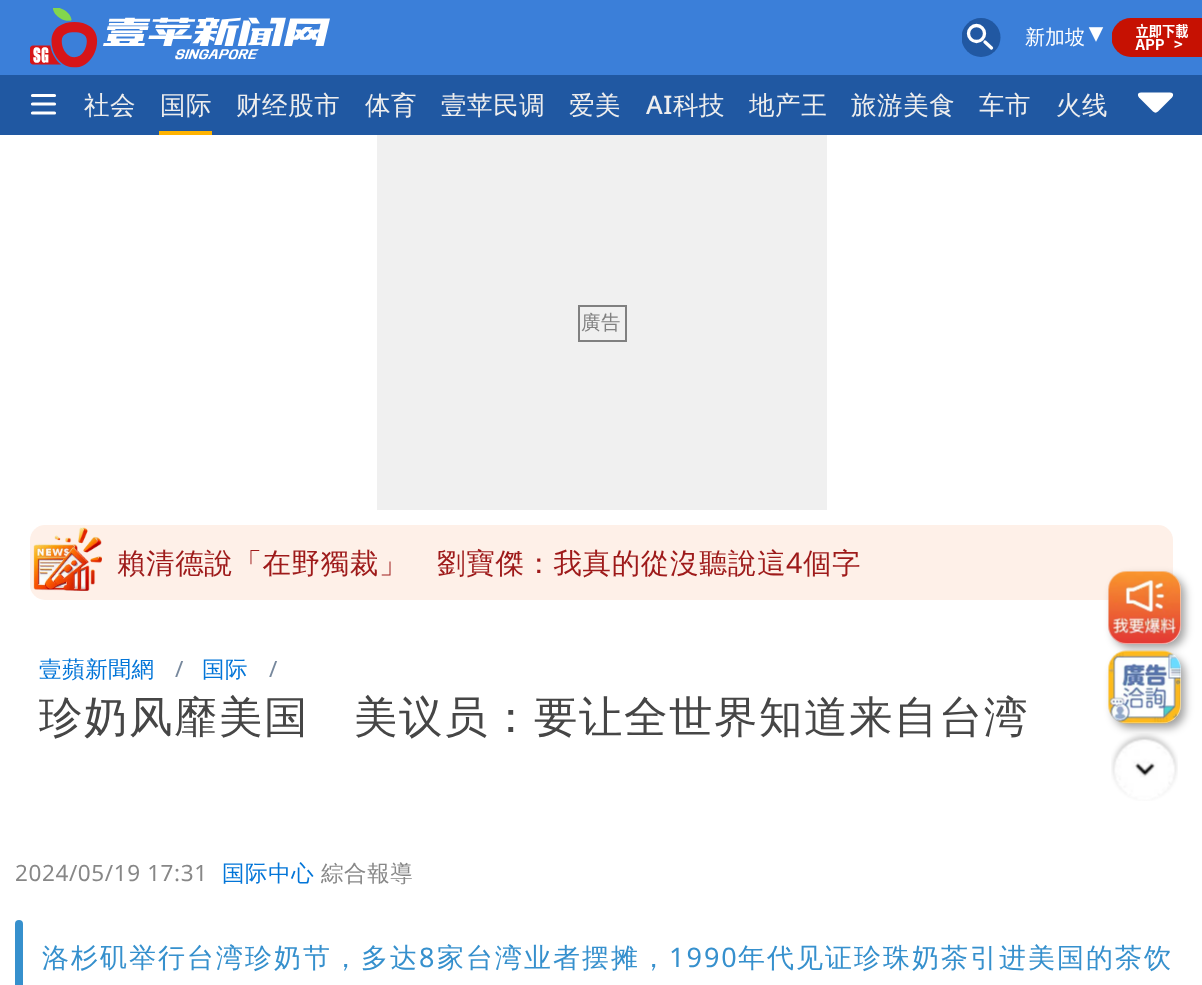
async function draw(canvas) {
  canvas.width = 1202
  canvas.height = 985
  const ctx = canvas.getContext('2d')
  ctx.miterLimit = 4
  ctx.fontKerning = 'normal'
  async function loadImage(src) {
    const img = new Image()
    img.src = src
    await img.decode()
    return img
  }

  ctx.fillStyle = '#fff'
  ctx.fillRect(0, 0, 1202, 985)
  ctx.fillStyle = '#3b7fd9'
  ctx.fillRect(0, 0, 1202, 75)
  ctx.drawImage(await loadImage('image0.png'), 30, 8, 300, 60)
  ctx.save()
  ctx.beginPath()
  ctx.rect(962, 18, 39, 39)
  ctx.clip()
  ctx.fillStyle = '#2158a2'
  ctx.beginPath()
  ctx.arc(981, 37.5, 19.5, 0, 2 * Math.PI)
  ctx.fill()
  ctx.restore()
  ctx.beginPath()
  ctx.arc(976.5, 33.5, 8, 0, 2 * Math.PI)
  ctx.strokeStyle = '#fff'
  ctx.lineWidth = 3.3
  ctx.stroke()
  ctx.beginPath()
  ctx.moveTo(985, 42)
  ctx.lineTo(991.5, 48)
  ctx.lineCap = 'round'
  ctx.lineJoin = 'round'
  ctx.stroke()
  ctx.font = '500 20px WenQuanYi Zen Hei'
  ctx.fillStyle = '#fff'
  ctx.fillText('新加坡', 1025, 44)
  ctx.letterSpacing = '0.6px'
  ctx.font = '500 18px WenQuanYi Zen Hei'
  ctx.fillText('▼', 1087, 41)
  ctx.drawImage(await loadImage('image1.png'), 1112, 18, 90, 39)
  ctx.fillStyle = '#2058a2'
  ctx.fillRect(0, 75, 1202, 60)
  ctx.beginPath()
  ctx.moveTo(32.5, 113)
  ctx.lineTo(54.5, 113)
  ctx.moveTo(32.5, 104)
  ctx.lineTo(54.5, 104)
  ctx.moveTo(32.5, 95.5)
  ctx.lineTo(54.5, 95.5)
  ctx.lineWidth = 3.2
  ctx.lineJoin = 'miter'
  ctx.stroke()
  ctx.font = '500 25.5px WenQuanYi Zen Hei'
  ctx.fillStyle = '#eee'
  ctx.fillText('社会', 84, 114)
  ctx.fillText('国际', 160, 114)
  ctx.fillStyle = '#ffb300'
  ctx.fillRect(159, 131, 53, 4)
  ctx.fillStyle = '#eee'
  ctx.fillText('财经股市', 236, 114)
  ctx.fillText('体育', 365, 114)
  ctx.fillText('壹苹民调', 441, 114)
  ctx.fillText('爱美', 569, 114)
  ctx.font = '500 25.5px Noto Sans'
  ctx.fillText('AI', 646, 114)
  ctx.font = '500 25.5px WenQuanYi Zen Hei'
  ctx.fillText('科技', 673, 114)
  ctx.fillText('地产王', 749, 114)
  ctx.fillText('旅游美食', 851, 114)
  ctx.fillText('车市', 979, 114)
  ctx.fillText('火线', 1056, 114)
  ctx.fillStyle = '#fff'
  ctx.beginPath()
  ctx.moveTo(1158, 111.5)
  ctx.bezierCurveTo(1156.5, 113, 1154.5, 113, 1153, 111.5)
  ctx.lineTo(1139, 97.5)
  ctx.bezierCurveTo(1137.5, 96, 1137, 92.5, 1141, 92.5)
  ctx.lineTo(1170, 92.5)
  ctx.bezierCurveTo(1174, 92.5, 1173.5, 96, 1172, 97.5)
  ctx.closePath()
  ctx.fill('evenodd')
  ctx.fillStyle = '#f0f0f0'
  ctx.fillRect(377, 135, 450, 375)
  ctx.strokeStyle = '#808080'
  ctx.lineWidth = 2
  ctx.strokeRect(579, 306, 47, 35)
  ctx.font = '500 19.5px WenQuanYi Zen Hei'
  ctx.fillStyle = '#808080'
  ctx.fillText('廣告', 581, 329)
  ctx.fillStyle = '#fef0e8'
  ctx.beginPath()
  ctx.roundRect(30, 525, 1143, 75, 15)
  ctx.fill()
  ctx.drawImage(await loadImage('image2.png'), 33, 527, 69, 64)
  ctx.font = '500 28.5px WenQuanYi Zen Hei'
  ctx.fillStyle = '#9e1a1a'
  ctx.fillText('賴清德說「在野獨裁」　劉寶傑：我真的從沒聽說這', 117, 573)
  ctx.font = '28.5px Noto Sans'
  ctx.fillText('4', 786, 573)
  ctx.font = '500 28.5px WenQuanYi Zen Hei'
  ctx.fillText('個字', 803, 573)
  ctx.font = '500 22.5px WenQuanYi Zen Hei'
  ctx.fillStyle = '#0275d8'
  ctx.fillText('壹蘋新聞網', 39, 677)
  ctx.fillText('国际', 202, 677)
  ctx.font = '22.5px Noto Sans'
  ctx.fillStyle = '#77889d'
  ctx.fillText('/', 269, 677)
  ctx.letterSpacing = '1.5px'
  ctx.font = '500 43.5px WenQuanYi Zen Hei'
  ctx.fillStyle = '#464646'
  ctx.fillText('珍奶风靡美国　美议员：要让全世界知道来自台湾', 39, 732)
  ctx.letterSpacing = '0.6px'
  ctx.font = '22.5px Noto Sans'
  ctx.fillStyle = '#77889d'
  ctx.fillText('/', 175, 677)
  ctx.fillStyle = '#878787'
  ctx.fillText('2024/05/19 17:31', 15, 881)
  ctx.font = '500 22.5px WenQuanYi Zen Hei'
  ctx.fillStyle = '#0275d8'
  ctx.fillText('国际中心', 222, 881)
  ctx.fillStyle = '#878787'
  ctx.fillText('綜合報導', 321, 881)
  ctx.fillStyle = '#3690cd'
  ctx.beginPath()
  ctx.roundRect(15, 920, 8, 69, 4)
  ctx.fill()
  ctx.letterSpacing = '2px'
  ctx.font = '500 27px WenQuanYi Zen Hei'
  ctx.fillText('洛杉矶举行台湾珍奶节，多达', 42, 967)
  ctx.font = '27px Noto Sans'
  ctx.fillText('8', 419, 967)
  ctx.font = '500 27px WenQuanYi Zen Hei'
  ctx.fillText('家台湾业者摆摊，', 437, 967)
  ctx.font = '27px Noto Sans'
  ctx.fillText('1990', 669, 967)
  ctx.font = '500 27px WenQuanYi Zen Hei'
  ctx.fillText('年代见证珍珠奶茶引进美国的茶饮', 738, 967)
  ctx.save()
  ctx.beginPath()
  ctx.moveTo(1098, 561)
  ctx.lineTo(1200, 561)
  ctx.lineTo(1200, 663)
  ctx.lineTo(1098, 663)
  ctx.closePath()
  ctx.moveTo(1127, 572)
  ctx.lineTo(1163, 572)
  ctx.bezierCurveTo(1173, 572, 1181, 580, 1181, 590)
  ctx.lineTo(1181, 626)
  ctx.bezierCurveTo(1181, 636, 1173, 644, 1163, 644)
  ctx.lineTo(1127, 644)
  ctx.bezierCurveTo(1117, 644, 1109, 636, 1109, 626)
  ctx.lineTo(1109, 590)
  ctx.bezierCurveTo(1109, 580, 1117, 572, 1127, 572)
  ctx.closePath()
  ctx.clip('evenodd')
  ctx.fillStyle = '#0000005e'
  ctx.filter = 'blur(4.5px)'
  ctx.beginPath()
  ctx.roundRect(1113, 576, 72, 72, 18)
  ctx.fill()
  ctx.filter = 'none'
  ctx.restore()
  ctx.drawImage(await loadImage('image3.png'), 1108, 571, 73, 73)
  ctx.drawImage(await loadImage('image5.png'), 1111, 733, 67, 68)
  ctx.save()
  ctx.beginPath()
  ctx.moveTo(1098, 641)
  ctx.lineTo(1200, 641)
  ctx.lineTo(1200, 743)
  ctx.lineTo(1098, 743)
  ctx.closePath()
  ctx.moveTo(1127, 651)
  ctx.lineTo(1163, 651)
  ctx.bezierCurveTo(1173, 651, 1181, 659, 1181, 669)
  ctx.lineTo(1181, 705)
  ctx.bezierCurveTo(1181, 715, 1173, 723, 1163, 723)
  ctx.lineTo(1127, 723)
  ctx.bezierCurveTo(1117, 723, 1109, 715, 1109, 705)
  ctx.lineTo(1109, 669)
  ctx.bezierCurveTo(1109, 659, 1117, 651, 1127, 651)
  ctx.closePath()
  ctx.clip('evenodd')
  ctx.fillStyle = '#0000005e'
  ctx.filter = 'blur(4.5px)'
  ctx.beginPath()
  ctx.roundRect(1113, 656, 72, 72, 18)
  ctx.fill()
  ctx.filter = 'none'
  ctx.restore()
  ctx.drawImage(await loadImage('image4.png'), 1108, 650, 73, 74)
}

draw(document.querySelector('canvas'))
